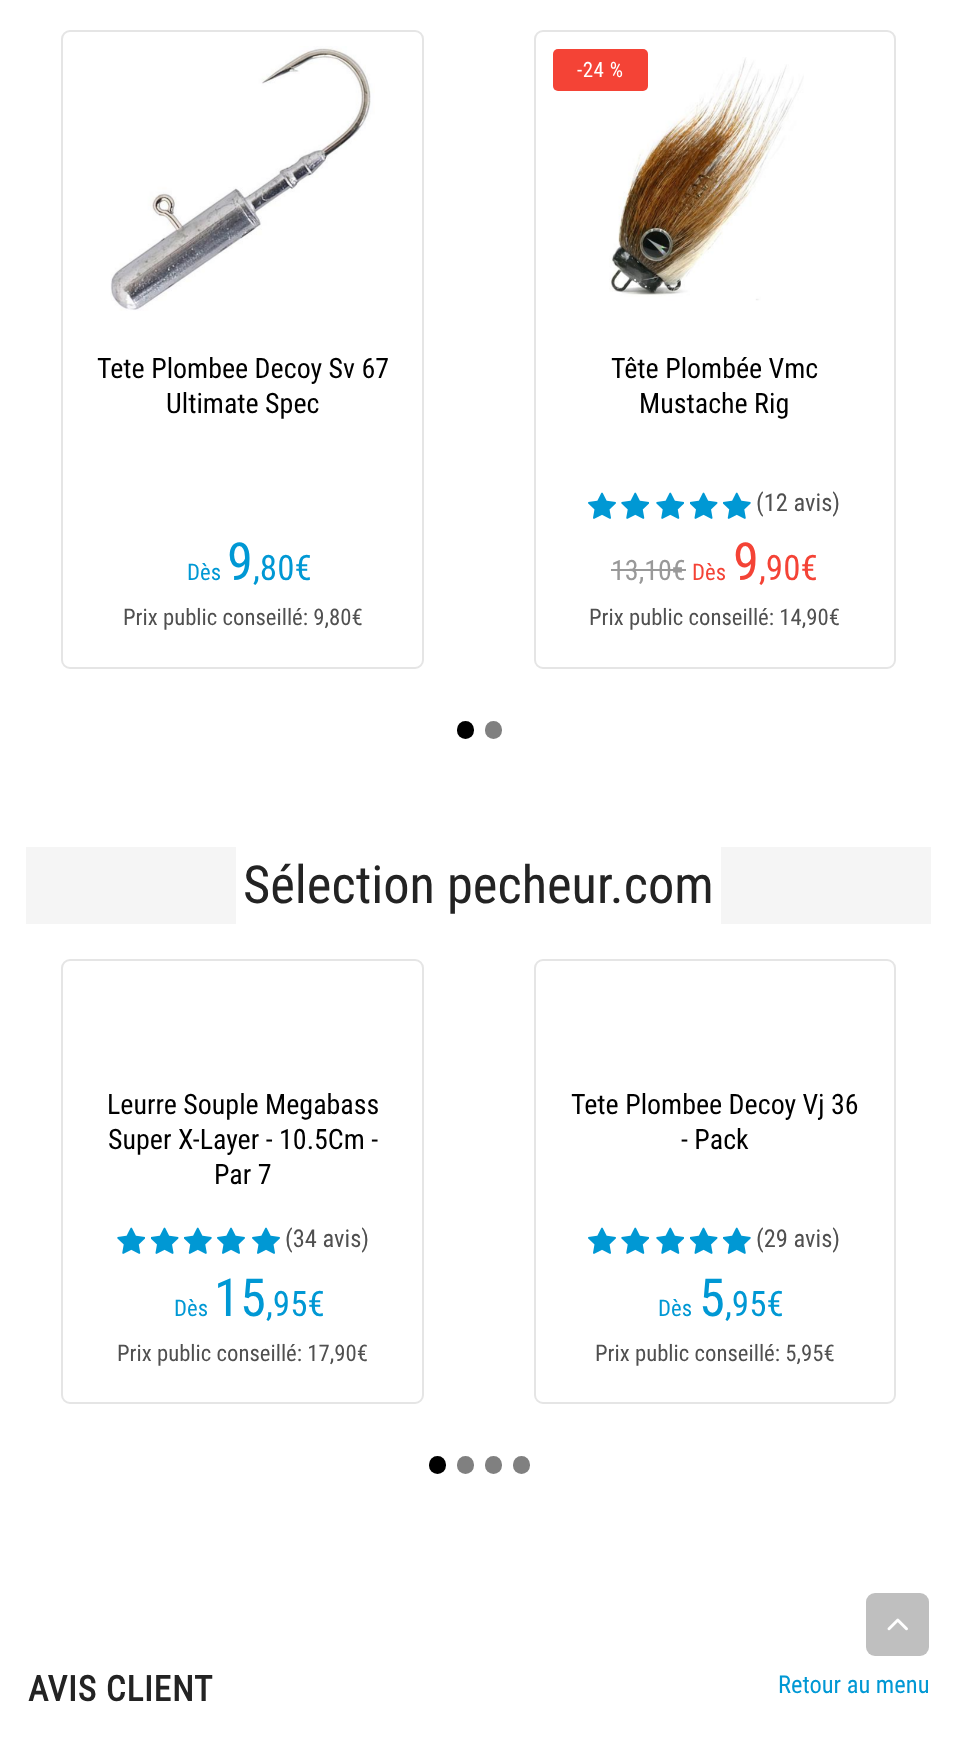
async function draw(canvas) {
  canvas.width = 957
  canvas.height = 1764
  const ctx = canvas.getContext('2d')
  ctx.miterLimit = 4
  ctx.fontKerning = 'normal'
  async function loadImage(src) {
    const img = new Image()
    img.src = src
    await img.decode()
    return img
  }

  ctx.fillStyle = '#fff'
  ctx.fillRect(0, 0, 957, 1764)
  ctx.beginPath()
  ctx.roundRect(62, 31, 361, 637, 8)
  ctx.strokeStyle = '#e5e5e5'
  ctx.lineWidth = 2
  ctx.stroke()
  ctx.drawImage(await loadImage('image0.png'), 110, 46, 265, 265)
  ctx.font = '28px Roboto Condensed'
  ctx.fillStyle = '#000'
  ctx.fillText('Tete Plombee Decoy Sv 67', 97, 378)
  ctx.fillText('Ultimate Spec', 166, 413)
  ctx.font = '22.75px Roboto Condensed'
  ctx.fillStyle = '#0098d4'
  ctx.fillText('Dès', 187, 580)
  ctx.font = '52.5px Roboto Condensed'
  ctx.fillText('9', 227, 580)
  ctx.font = '35px Roboto Condensed'
  ctx.fillText(',80€', 253, 580)
  ctx.font = '22.75px Roboto Condensed'
  ctx.fillStyle = '#505050'
  ctx.fillText('Prix public conseillé: 9,80€', 123, 625)
  ctx.beginPath()
  ctx.roundRect(535, 31, 360, 637, 8)
  ctx.stroke()
  ctx.drawImage(await loadImage('image1.png'), 609, 57, 195, 244)
  ctx.fillStyle = '#f44336'
  ctx.beginPath()
  ctx.roundRect(553, 49, 95, 42, 5)
  ctx.fill()
  ctx.letterSpacing = '0.5px'
  ctx.font = '21px Roboto Condensed'
  ctx.fillStyle = '#fff'
  ctx.fillText('-24 %', 577, 77)
  ctx.letterSpacing = '0px'
  ctx.font = '28px Roboto Condensed'
  ctx.fillStyle = '#000'
  ctx.fillText('Tête Plombée Vmc', 611, 378)
  ctx.fillText('Mustache Rig', 639, 413)
  ctx.drawImage(await loadImage('image2.png'), 588, 492, 28, 27)
  ctx.drawImage(await loadImage('image3.png'), 621, 492, 28, 27)
  ctx.drawImage(await loadImage('image3.png'), 656, 492, 28, 27)
  ctx.drawImage(await loadImage('image4.png'), 690, 492, 28, 27)
  ctx.drawImage(await loadImage('image5.png'), 723, 492, 28, 27)
  ctx.font = '24.5px Roboto Condensed'
  ctx.fillStyle = '#505050'
  ctx.fillText('(12 avis)', 756, 511)
  ctx.font = '28px Roboto Condensed'
  ctx.fillStyle = '#999'
  ctx.fillText('13,10€', 611, 580)
  ctx.fillRect(611, 569, 75, 2)
  ctx.font = '22.75px Roboto Condensed'
  ctx.fillStyle = '#f44336'
  ctx.fillText('Dès', 692, 580)
  ctx.font = '52.5px Roboto Condensed'
  ctx.fillText('9', 733, 580)
  ctx.font = '35px Roboto Condensed'
  ctx.fillText(',90€', 759, 580)
  ctx.font = '22.75px Roboto Condensed'
  ctx.fillStyle = '#505050'
  ctx.fillText('Prix public conseillé: 14,90€', 589, 625)
  ctx.fillStyle = '#000'
  ctx.beginPath()
  ctx.roundRect(457, 721, 17, 18, 8.5)
  ctx.fill()
  ctx.fillStyle = '#808080'
  ctx.beginPath()
  ctx.roundRect(485, 721, 17, 18, 8.5)
  ctx.fill()
  ctx.fillStyle = '#f5f5f5'
  ctx.fillRect(26, 847, 905, 77)
  ctx.fillStyle = '#fff'
  ctx.fillRect(236, 847, 485, 77)
  ctx.font = '52.5px Roboto Condensed'
  ctx.fillStyle = '#232323'
  ctx.fillText('Sélection pecheur.com', 243, 903)
  ctx.beginPath()
  ctx.roundRect(62, 960, 361, 443, 8)
  ctx.stroke()
  ctx.font = '28px Roboto Condensed'
  ctx.fillStyle = '#000'
  ctx.fillText('Leurre Souple Megabass', 107, 1114)
  ctx.fillText('Super X-Layer - 10.5Cm -', 108, 1149)
  ctx.fillText('Par 7', 214, 1184)
  ctx.drawImage(await loadImage('image3.png'), 117, 1227, 28, 27)
  ctx.drawImage(await loadImage('image4.png'), 151, 1227, 28, 27)
  ctx.drawImage(await loadImage('image5.png'), 184, 1227, 28, 27)
  ctx.drawImage(await loadImage('image2.png'), 217, 1227, 28, 27)
  ctx.drawImage(await loadImage('image2.png'), 252, 1227, 28, 27)
  ctx.font = '24.5px Roboto Condensed'
  ctx.fillStyle = '#505050'
  ctx.fillText('(34 avis)', 285, 1247)
  ctx.font = '22.75px Roboto Condensed'
  ctx.fillStyle = '#0098d4'
  ctx.fillText('Dès', 174, 1316)
  ctx.font = '52.5px Roboto Condensed'
  ctx.fillText('15', 214, 1316)
  ctx.font = '35px Roboto Condensed'
  ctx.fillText(',95€', 266, 1316)
  ctx.font = '22.75px Roboto Condensed'
  ctx.fillStyle = '#505050'
  ctx.fillText('Prix public conseillé: 17,90€', 117, 1361)
  ctx.beginPath()
  ctx.roundRect(535, 960, 360, 443, 8)
  ctx.stroke()
  ctx.font = '28px Roboto Condensed'
  ctx.fillStyle = '#000'
  ctx.fillText('Tete Plombee Decoy Vj 36', 571, 1114)
  ctx.fillText('- Pack', 681, 1149)
  ctx.drawImage(await loadImage('image2.png'), 588, 1227, 28, 27)
  ctx.drawImage(await loadImage('image3.png'), 621, 1227, 28, 27)
  ctx.drawImage(await loadImage('image3.png'), 656, 1227, 28, 27)
  ctx.drawImage(await loadImage('image4.png'), 690, 1227, 28, 27)
  ctx.drawImage(await loadImage('image5.png'), 723, 1227, 28, 27)
  ctx.font = '24.5px Roboto Condensed'
  ctx.fillStyle = '#505050'
  ctx.fillText('(29 avis)', 756, 1247)
  ctx.font = '22.75px Roboto Condensed'
  ctx.fillStyle = '#0098d4'
  ctx.fillText('Dès', 658, 1316)
  ctx.font = '52.5px Roboto Condensed'
  ctx.fillText('5', 699, 1316)
  ctx.font = '35px Roboto Condensed'
  ctx.fillText(',95€', 725, 1316)
  ctx.font = '22.75px Roboto Condensed'
  ctx.fillStyle = '#505050'
  ctx.fillText('Prix public conseillé: 5,95€', 595, 1361)
  ctx.fillStyle = '#000'
  ctx.beginPath()
  ctx.roundRect(429, 1456, 17, 18, 8.5)
  ctx.fill()
  ctx.fillStyle = '#808080'
  ctx.beginPath()
  ctx.roundRect(457, 1456, 17, 18, 8.5)
  ctx.fill()
  ctx.beginPath()
  ctx.roundRect(485, 1456, 17, 18, 8.5)
  ctx.fill()
  ctx.beginPath()
  ctx.roundRect(513, 1456, 17, 18, 8.5)
  ctx.fill()
  ctx.letterSpacing = '0.9px'
  ctx.font = 'bold 35px Roboto Condensed'
  ctx.fillStyle = '#232323'
  ctx.fillText('AVIS CLIENT', 28, 1701)
  ctx.letterSpacing = '0px'
  ctx.font = '24.5px Roboto Condensed'
  ctx.fillStyle = '#0098d4'
  ctx.fillText('Retour au menu', 778, 1693)
  ctx.fillStyle = '#bfbfbf'
  ctx.beginPath()
  ctx.roundRect(866, 1593, 63, 63, 9)
  ctx.fill()
  ctx.drawImage(await loadImage('image6.png'), 887, 1618, 21, 13)
}

draw(document.querySelector('canvas'))
